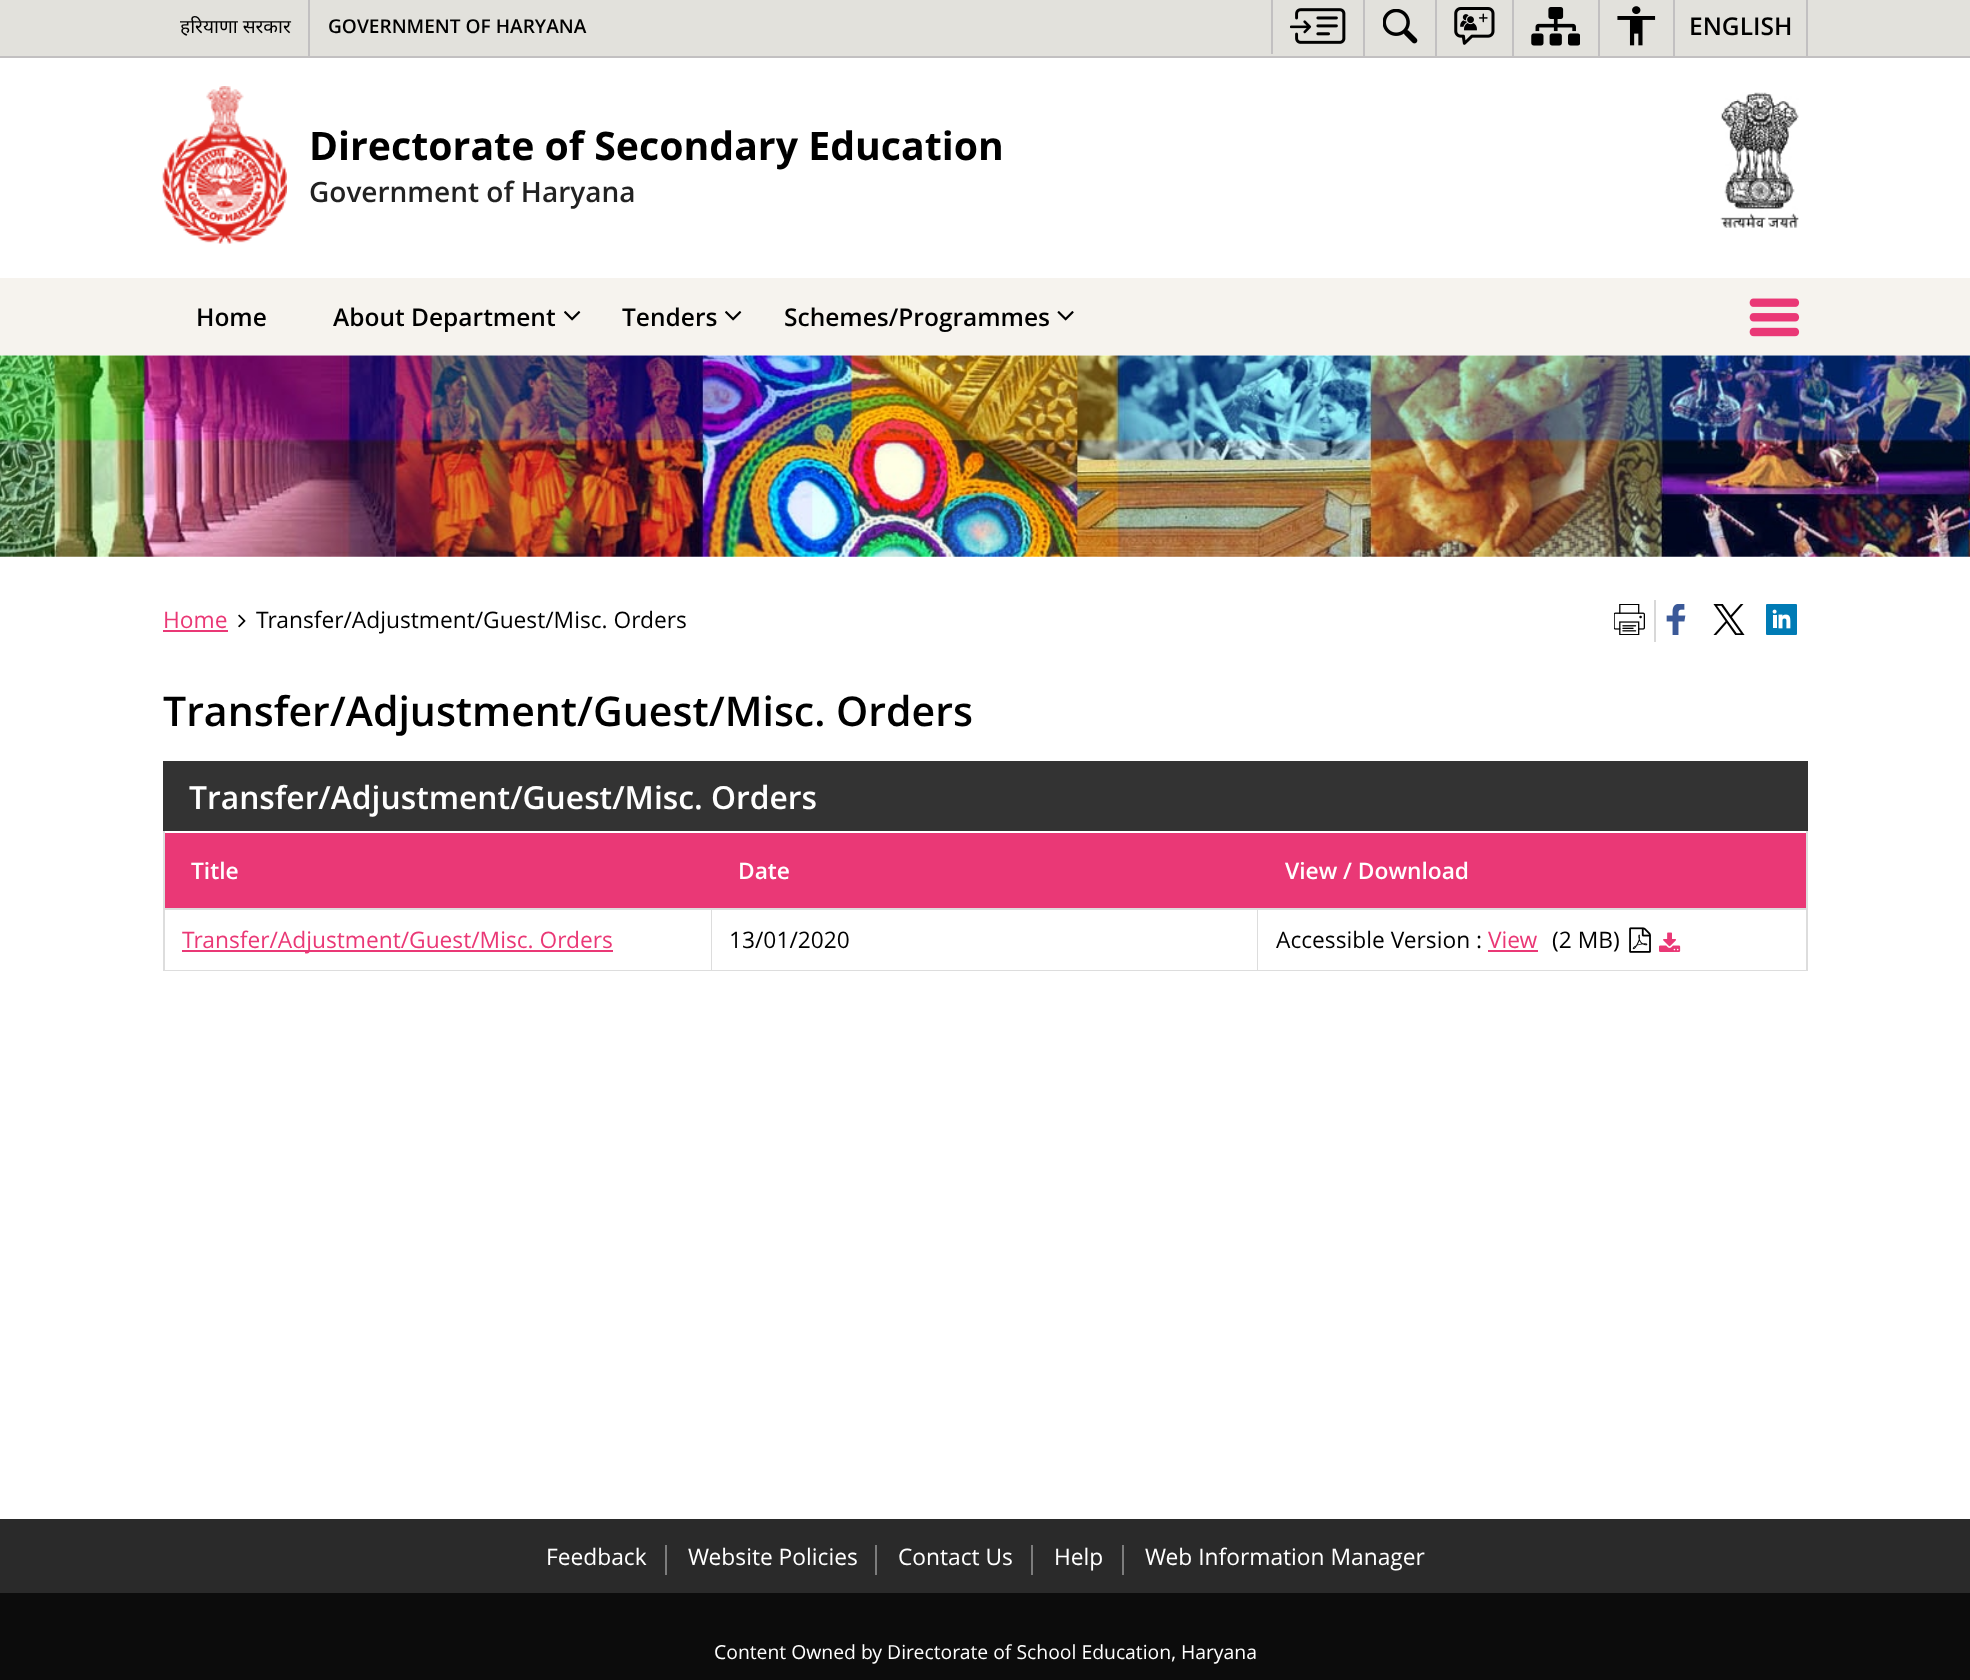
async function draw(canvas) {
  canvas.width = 1970
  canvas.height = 1680
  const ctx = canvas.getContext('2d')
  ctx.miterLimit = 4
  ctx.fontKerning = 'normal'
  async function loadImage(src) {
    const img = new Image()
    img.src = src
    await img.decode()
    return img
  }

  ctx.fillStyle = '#fff'
  ctx.fillRect(0, 0, 1970, 1680)
  ctx.fillStyle = '#e2e1dc'
  ctx.fillRect(0, 0, 1970, 56)
  ctx.fillStyle = '#c2c0c1'
  ctx.fillRect(0, 56, 1970, 2)
  ctx.fillRect(308, 0, 2, 56)
  ctx.font = '19.1px Noto Sans'
  ctx.fillStyle = '#000'
  ctx.fillText('हरियाणा सरकार', 180, 33)
  ctx.font = '600 19.1px Open Sans'
  ctx.fillText('GOVERNMENT OF HARYANA', 328, 33)
  ctx.fillStyle = '#c2c0c1'
  ctx.fillRect(1271, 0, 2, 54)
  ctx.drawImage(await loadImage('image0.png'), 1290, 8, 56, 36)
  ctx.fillRect(1363, 0, 2, 56)
  ctx.drawImage(await loadImage('image1.png'), 1383, 9, 35, 35)
  ctx.fillRect(1435, 0, 2, 56)
  ctx.drawImage(await loadImage('image2.png'), 1454, 7, 41, 38)
  ctx.fillRect(1512, 0, 2, 56)
  ctx.drawImage(await loadImage('image3.png'), 1531, 7, 49, 39)
  ctx.fillRect(1598, 0, 2, 56)
  ctx.drawImage(await loadImage('image4.png'), 1617, 6, 39, 40)
  ctx.fillRect(1806, 0, 2, 56)
  ctx.fillRect(1673, 0, 2, 56)
  ctx.font = '600 24.5px Open Sans'
  ctx.fillStyle = '#000'
  ctx.fillText('ENGLISH', 1689, 35)
  ctx.drawImage(await loadImage('image5.png'), 162, 86, 125, 158)
  ctx.font = 'bold 39.25px Open Sans'
  ctx.fillText('Directorate of Secondary Education', 309, 160)
  ctx.font = '600 28px Open Sans'
  ctx.fillStyle = '#222'
  ctx.fillText('Government of Haryana', 309, 202)
  ctx.drawImage(await loadImage('image6.png'), 1720, 92, 79, 136)
  ctx.fillStyle = '#f6f3ee'
  ctx.fillRect(0, 278, 1970, 77)
  ctx.font = '600 24.5px Open Sans'
  ctx.fillStyle = '#000'
  ctx.fillText('Home', 196, 326)
  ctx.fillText('About Department', 333, 326)
  ctx.drawImage(await loadImage('image7.png'), 564, 311, 17, 10)
  ctx.fillText('Tenders', 622, 326)
  ctx.drawImage(await loadImage('image7.png'), 725, 311, 17, 10)
  ctx.fillText('Schemes/Programmes', 784, 326)
  ctx.drawImage(await loadImage('image8.png'), 1057, 311, 17, 10)
  ctx.drawImage(await loadImage('image9.png'), 1749, 298, 51, 39)
  ctx.drawImage(await loadImage('image10.png'), 0, 355, 1970, 202)
  ctx.font = '22.75px Open Sans'
  ctx.fillStyle = '#ea3876'
  ctx.fillText('Home', 163, 628)
  ctx.fillRect(163, 630, 65, 2)
  ctx.drawImage(await loadImage('image11.png'), 238, 614, 8, 14)
  ctx.fillStyle = '#000'
  ctx.fillText('Transfer/Adjustment/Guest/Misc. Orders', 256, 628)
  ctx.fillStyle = '#d8d8d8'
  ctx.fillRect(1654, 600, 2, 42)
  ctx.drawImage(await loadImage('image12.png'), 1614, 604, 31, 31)
  ctx.drawImage(await loadImage('image13.png'), 1666, 604, 20, 31)
  ctx.drawImage(await loadImage('image14.png'), 1713, 604, 32, 31)
  ctx.drawImage(await loadImage('image15.png'), 1766, 604, 31, 31)
  ctx.font = '600 41px Open Sans'
  ctx.fillStyle = '#000'
  ctx.fillText('Transfer/Adjustment/Guest/Misc. Orders', 163, 726)
  ctx.strokeStyle = '#ddd'
  ctx.lineWidth = 2
  ctx.strokeRect(164, 762, 1643, 208)
  ctx.fillStyle = '#333'
  ctx.fillRect(163, 761, 1645, 70)
  ctx.font = '600 31.8px Open Sans'
  ctx.fillStyle = '#fff'
  ctx.fillText('Transfer/Adjustment/Guest/Misc. Orders', 189, 809)
  ctx.fillStyle = '#ea3876'
  ctx.fillRect(165, 833, 1641, 75)
  ctx.font = '600 22.75px Open Sans'
  ctx.fillStyle = '#fff'
  ctx.fillText('Title', 191, 879)
  ctx.fillText('Date', 738, 879)
  ctx.fillText('View / Download', 1285, 879)
  ctx.fillRect(165, 969, 546, 1)
  ctx.fillStyle = '#ddd'
  ctx.fillRect(165, 908, 1641, 2)
  ctx.fillRect(711, 908, 1, 62)
  ctx.fillStyle = '#ea3876'
  ctx.fillRect(182, 950, 431, 2)
  ctx.font = '22.75px Open Sans'
  ctx.fillText('Transfer/Adjustment/Guest/Misc. Orders', 182, 948)
  ctx.fillStyle = '#fff'
  ctx.fillRect(712, 969, 545, 1)
  ctx.fillStyle = '#ddd'
  ctx.fillRect(1257, 908, 1, 62)
  ctx.fillStyle = '#000'
  ctx.fillText('13/01/2020', 729, 948)
  ctx.fillStyle = '#fff'
  ctx.fillRect(1258, 969, 548, 1)
  ctx.fillStyle = '#000'
  ctx.fillText('Accessible Version :', 1276, 948)
  ctx.fillStyle = '#ea3876'
  ctx.fillText('View', 1488, 948)
  ctx.fillRect(1488, 950, 50, 2)
  ctx.fillStyle = '#000'
  ctx.fillText('(2 MB)', 1552, 948)
  ctx.drawImage(await loadImage('image16.png'), 1629, 927, 22, 26)
  ctx.drawImage(await loadImage('image17.png'), 1659, 932, 22, 20)
  ctx.fillStyle = '#2a2a2a'
  ctx.fillRect(0, 1519, 1970, 74)
  ctx.fillStyle = '#fff'
  ctx.fillText('Feedback', 546, 1565)
  ctx.fillStyle = '#7c7c7c'
  ctx.fillRect(665, 1545, 2, 30)
  ctx.fillStyle = '#fff'
  ctx.fillText('Website Policies', 688, 1565)
  ctx.fillStyle = '#7c7c7c'
  ctx.fillRect(875, 1545, 2, 30)
  ctx.fillStyle = '#fff'
  ctx.fillText('Contact Us', 898, 1565)
  ctx.fillStyle = '#7c7c7c'
  ctx.fillRect(1031, 1545, 2, 30)
  ctx.fillStyle = '#fff'
  ctx.fillText('Help', 1054, 1565)
  ctx.fillStyle = '#7c7c7c'
  ctx.fillRect(1122, 1545, 2, 30)
  ctx.fillStyle = '#fff'
  ctx.fillText('Web Information Manager', 1145, 1565)
  ctx.fillStyle = '#0c0c0c'
  ctx.fillRect(0, 1593, 1970, 87)
  ctx.font = '19.35px Open Sans'
  ctx.fillStyle = '#fff'
  ctx.fillText('Content Owned by Directorate of School Education, Haryana', 714, 1659)
}

draw(document.querySelector('canvas'))
